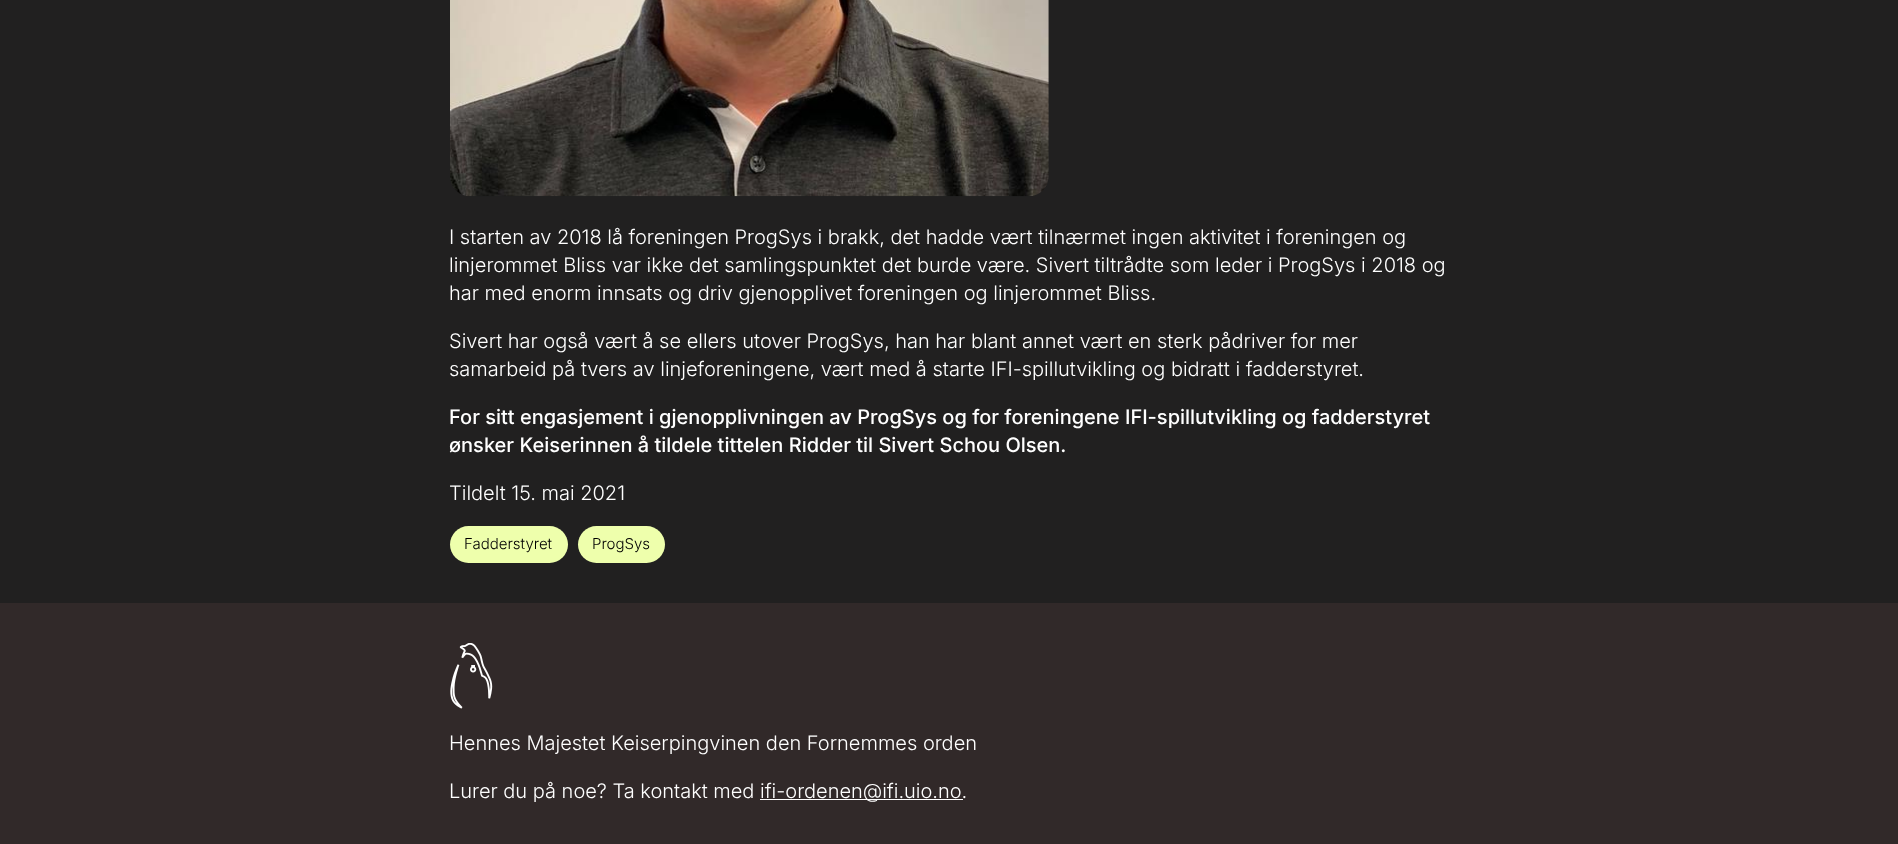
async function draw(canvas) {
  canvas.width = 1898
  canvas.height = 844
  const ctx = canvas.getContext('2d')
  ctx.miterLimit = 4
  ctx.fontKerning = 'normal'
  async function loadImage(src) {
    const img = new Image()
    img.src = src
    await img.decode()
    return img
  }

  ctx.fillStyle = '#212020'
  ctx.fillRect(0, 0, 1898, 844)
  ctx.drawImage(await loadImage('image0.png'), 450, 0, 599, 197)
  ctx.font = '300 20px Inter'
  ctx.fillStyle = '#fff'
  ctx.fillText('I starten av 2018 lå foreningen ProgSys i brakk, det hadde vært tilnærmet ingen aktivitet i foreningen og', 449, 244)
  ctx.fillText('linjerommet Bliss var ikke det samlingspunktet det burde være. Sivert tiltrådte som leder i ProgSys i 2018 og', 449, 272)
  ctx.fillText('har med enorm innsats og driv gjenopplivet foreningen og linjerommet Bliss.', 449, 300)
  ctx.fillText('Sivert har også vært å se ellers utover ProgSys, han har blant annet vært en sterk pådriver for mer', 449, 348)
  ctx.fillText('samarbeid på tvers av linjeforeningene, vært med å starte IFI-spillutvikling og bidratt i fadderstyret.', 449, 376)
  ctx.font = '500 20px Inter'
  ctx.fillText('For sitt engasjement i gjenopplivningen av ProgSys og for foreningene IFI-spillutvikling og fadderstyret', 449, 424)
  ctx.fillText('ønsker Keiserinnen å tildele tittelen Ridder til Sivert Schou Olsen.', 449, 452)
  ctx.font = '300 20px Inter'
  ctx.fillText('Tildelt 15. mai 2021', 449, 500)
  ctx.fillStyle = '#eeffac'
  ctx.beginPath()
  ctx.roundRect(450, 526, 118, 37, 18.5)
  ctx.fill()
  ctx.font = '300 15px Inter'
  ctx.fillStyle = '#000'
  ctx.fillText('Fadderstyret', 464, 549)
  ctx.fillStyle = '#eeffac'
  ctx.beginPath()
  ctx.roundRect(578, 526, 87, 37, 18.5)
  ctx.fill()
  ctx.fillStyle = '#000'
  ctx.fillText('ProgSys', 592, 549)
  ctx.fillStyle = '#312929'
  ctx.fillRect(0, 603, 1898, 241)
  ctx.drawImage(await loadImage('image1.png'), 450, 643, 43, 66)
  ctx.font = '300 20px Inter'
  ctx.fillStyle = '#fff'
  ctx.fillText('Hennes Majestet Keiserpingvinen den Fornemmes orden', 449, 750)
  ctx.fillText('Lurer du på noe? Ta kontakt med', 449, 798)
  ctx.fillRect(760, 799, 203, 1)
  ctx.fillText('ifi-ordenen@ifi.uio.no.', 760, 798)
}

draw(document.querySelector('canvas'))
